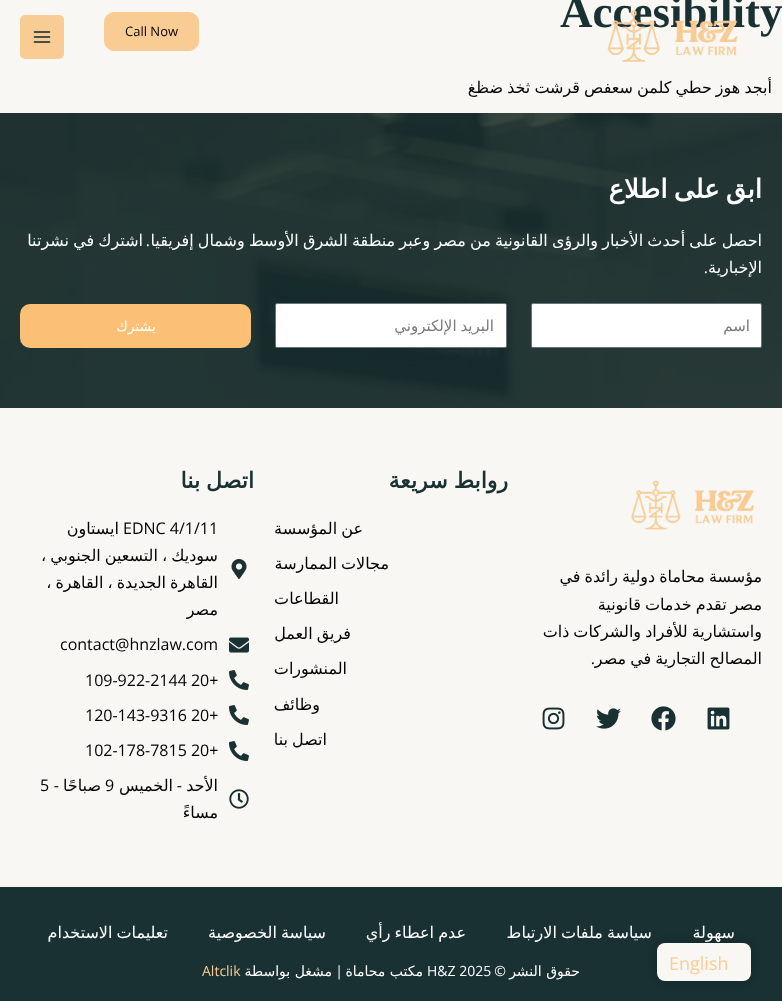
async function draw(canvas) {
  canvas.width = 782
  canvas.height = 1001
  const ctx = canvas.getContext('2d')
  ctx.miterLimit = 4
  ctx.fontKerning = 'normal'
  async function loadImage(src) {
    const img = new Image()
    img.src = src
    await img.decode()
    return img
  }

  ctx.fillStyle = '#f9f7f3'
  ctx.fillRect(0, 0, 782, 1001)
  ctx.font = 'bold 45px Liberation Serif'
  ctx.fillStyle = '#193133'
  ctx.fillText('Accesibility', 560, 27)
  ctx.wordSpacing = '-1px'
  ctx.direction = 'rtl'
  ctx.font = '16px DejaVu Sans'
  ctx.fillStyle = '#000'
  ctx.fillText('أبجد هوز حطي كلمن سعفص قرشت ثخذ ضظغ', 772, 93)
  ctx.drawImage(await loadImage('image0.png'), 607, 9, 131, 53)
  ctx.fillStyle = '#f9cc94'
  ctx.beginPath()
  ctx.roundRect(104.5, 12.5, 94, 38, 9.5)
  ctx.fill()
  ctx.strokeStyle = '#f9cc94'
  ctx.stroke()
  ctx.wordSpacing = '0px'
  ctx.direction = 'ltr'
  ctx.font = '13px Open Sans'
  ctx.fillStyle = '#000'
  ctx.fillText('Call Now', 125, 36)
  ctx.fillStyle = '#f9cc94'
  ctx.beginPath()
  ctx.roundRect(20, 15, 44, 44, 5)
  ctx.fill()
  ctx.drawImage(await loadImage('image1.png'), 33, 31, 18, 12)
  ctx.drawImage(await loadImage('image2.png'), 0, 113, 782, 295)
  ctx.wordSpacing = '-2px'
  ctx.direction = 'rtl'
  ctx.font = 'bold 26px DejaVu Sans'
  ctx.fillStyle = '#fff'
  ctx.fillText('ابق على اطلاع', 762, 198)
  ctx.wordSpacing = '-0.9px'
  ctx.font = '16px DejaVu Sans'
  ctx.fillText('احصل على أحدث الأخبار والرؤى القانونية من مصر وعبر منطقة الشرق الأوسط وشمال إفريقيا', 762, 246)
  ctx.wordSpacing = '0px'
  ctx.font = '16px Open Sans'
  ctx.fillText('.', 150, 246)
  ctx.wordSpacing = '-0.9px'
  ctx.font = '16px DejaVu Sans'
  ctx.fillText('اشترك في نشرتنا', 143, 246)
  ctx.wordSpacing = '0px'
  ctx.fillText('الإخبارية', 762, 273)
  ctx.font = '16px Open Sans'
  ctx.fillText('.', 708, 273)
  ctx.beginPath()
  ctx.roundRect(531.5, 303.5, 230, 44, 1.5)
  ctx.fill()
  ctx.strokeStyle = '#69727d'
  ctx.stroke()
  ctx.font = '15px DejaVu Sans'
  ctx.fillStyle = '#797a7c'
  ctx.fillText('اسم', 750, 331)
  ctx.fillStyle = '#fff'
  ctx.beginPath()
  ctx.roundRect(275.5, 303.5, 231, 44, 1.5)
  ctx.fill()
  ctx.stroke()
  ctx.wordSpacing = '-0.9px'
  ctx.fillStyle = '#797a7c'
  ctx.fillText('البريد الإلكتروني', 494, 331)
  ctx.fillStyle = '#fbbf76'
  ctx.beginPath()
  ctx.roundRect(20, 304, 231, 44, 10)
  ctx.fill()
  ctx.wordSpacing = '0px'
  ctx.font = '14px DejaVu Sans'
  ctx.fillStyle = '#fff'
  ctx.fillText('يشترك', 156, 331)
  ctx.drawImage(await loadImage('image3.png'), 631, 480, 123, 50)
  ctx.wordSpacing = '-1px'
  ctx.font = '16px DejaVu Sans'
  ctx.fillStyle = '#000'
  ctx.fillText('مؤسسة محاماة دولية رائدة في', 762, 582)
  ctx.fillText('مصر تقدم خدمات قانونية', 762, 610)
  ctx.fillText('واستشارية للأفراد والشركات ذات', 762, 637)
  ctx.wordSpacing = '0px'
  ctx.font = '16px Open Sans'
  ctx.fillText('.', 595, 664)
  ctx.wordSpacing = '-1px'
  ctx.font = '16px DejaVu Sans'
  ctx.fillText('المصالح التجارية في مصر', 762, 664)
  ctx.drawImage(await loadImage('image4.png'), 707, 707, 23, 23)
  ctx.drawImage(await loadImage('image5.png'), 651, 706, 25, 25)
  ctx.drawImage(await loadImage('image6.png'), 596, 708, 25, 21)
  ctx.drawImage(await loadImage('image7.png'), 542, 707, 23, 23)
  ctx.font = 'bold 22px DejaVu Sans'
  ctx.fillStyle = '#193133'
  ctx.fillText('روابط سريعة', 508, 488)
  ctx.font = '16px DejaVu Sans'
  ctx.fillStyle = '#000'
  ctx.fillText('عن المؤسسة', 363, 534)
  ctx.fillText('مجالات الممارسة', 389, 569)
  ctx.wordSpacing = '0px'
  ctx.fillText('القطاعات', 339, 604)
  ctx.wordSpacing = '-1px'
  ctx.fillText('فريق العمل', 351, 639)
  ctx.wordSpacing = '0px'
  ctx.fillText('المنشورات', 347, 674)
  ctx.fillText('وظائف', 320, 710)
  ctx.wordSpacing = '-1px'
  ctx.fillText('اتصل بنا', 327, 745)
  ctx.font = 'bold 22px DejaVu Sans'
  ctx.fillStyle = '#193133'
  ctx.fillText('اتصل بنا', 254, 488)
  ctx.drawImage(await loadImage('image8.png'), 231, 559, 16, 20)
  ctx.wordSpacing = '0px'
  ctx.direction = 'ltr'
  ctx.font = '16px Open Sans'
  ctx.fillStyle = '#000'
  ctx.fillText('EDNC 4/1/11', 123, 534)
  ctx.direction = 'rtl'
  ctx.font = '16px DejaVu Sans'
  ctx.fillText('ايستاون', 119, 534)
  ctx.wordSpacing = '-1px'
  ctx.fillText('سوديك ، التسعين الجنوبي ،', 218, 561)
  ctx.fillText('القاهرة الجديدة ، القاهرة ،', 218, 588)
  ctx.wordSpacing = '0px'
  ctx.fillText('مصر', 218, 615)
  ctx.drawImage(await loadImage('image9.png'), 229, 637, 20, 16)
  ctx.direction = 'ltr'
  ctx.font = '16px Open Sans'
  ctx.fillText('contact@hnzlaw.com', 60, 650)
  ctx.drawImage(await loadImage('image10.png'), 229, 670, 20, 20)
  ctx.fillText('109-922-2144 20+', 85, 686)
  ctx.drawImage(await loadImage('image10.png'), 229, 705, 20, 20)
  ctx.fillText('120-143-9316 20+', 85, 721)
  ctx.drawImage(await loadImage('image10.png'), 229, 741, 20, 20)
  ctx.fillText('102-178-7815 20+', 85, 756)
  ctx.drawImage(await loadImage('image11.png'), 229, 789, 20, 20)
  ctx.direction = 'rtl'
  ctx.font = '16px DejaVu Sans'
  ctx.fillText('الأحد', 218, 791)
  ctx.font = '16px Open Sans'
  ctx.fillText('-', 182, 791)
  ctx.font = '16px DejaVu Sans'
  ctx.fillText('الخميس', 173, 791)
  ctx.direction = 'ltr'
  ctx.font = '16px Open Sans'
  ctx.fillText('9', 105, 791)
  ctx.direction = 'rtl'
  ctx.font = '16px DejaVu Sans'
  ctx.fillText('صباحًا', 101, 791)
  ctx.font = '16px Open Sans'
  ctx.fillText('-', 59, 791)
  ctx.direction = 'ltr'
  ctx.fillText('5', 40, 791)
  ctx.direction = 'rtl'
  ctx.font = '16px DejaVu Sans'
  ctx.fillText('مساءً', 218, 818)
  ctx.fillStyle = '#193133'
  ctx.fillRect(0, 887, 782, 114)
  ctx.fillStyle = '#0101013d'
  ctx.filter = 'blur(5px)'
  ctx.beginPath()
  ctx.roundRect(657, 943, 94, 38, 8)
  ctx.fill()
  ctx.filter = 'none'
  ctx.fillStyle = '#fff'
  ctx.fillText('سهولة', 735, 938)
  ctx.wordSpacing = '-1px'
  ctx.fillText('سياسة ملفات الارتباط', 652, 938)
  ctx.fillText('عدم اعطاء رأي', 466, 938)
  ctx.fillText('سياسة الخصوصية', 326, 938)
  ctx.fillText('تعليمات الاستخدام', 168, 938)
  ctx.fillStyle = '#f9f7f3'
  ctx.beginPath()
  ctx.roundRect(657, 943, 94, 38, 8)
  ctx.fill()
  ctx.wordSpacing = '0px'
  ctx.direction = 'ltr'
  ctx.font = '18px Open Sans'
  ctx.fillStyle = '#f9cc94'
  ctx.fillText('English', 669, 970)
  ctx.direction = 'rtl'
  ctx.font = '14px DejaVu Sans'
  ctx.fillStyle = '#fff'
  ctx.fillText('حقوق النشر', 580, 976)
  ctx.font = '14px Open Sans'
  ctx.fillText('©', 506, 976)
  ctx.direction = 'ltr'
  ctx.fillText('H&Z 2025', 427, 976)
  ctx.direction = 'rtl'
  ctx.font = '14px DejaVu Sans'
  ctx.fillText('مكتب محاماة', 423, 976)
  ctx.font = '14px Open Sans'
  ctx.fillText('|', 343, 976)
  ctx.font = '14px DejaVu Sans'
  ctx.fillText('مشغل بواسطة', 332, 976)
  ctx.direction = 'ltr'
  ctx.font = '14px Open Sans'
  ctx.fillStyle = '#f9cc94'
  ctx.fillText('Altclik', 202, 976)
}

draw(document.querySelector('canvas'))
